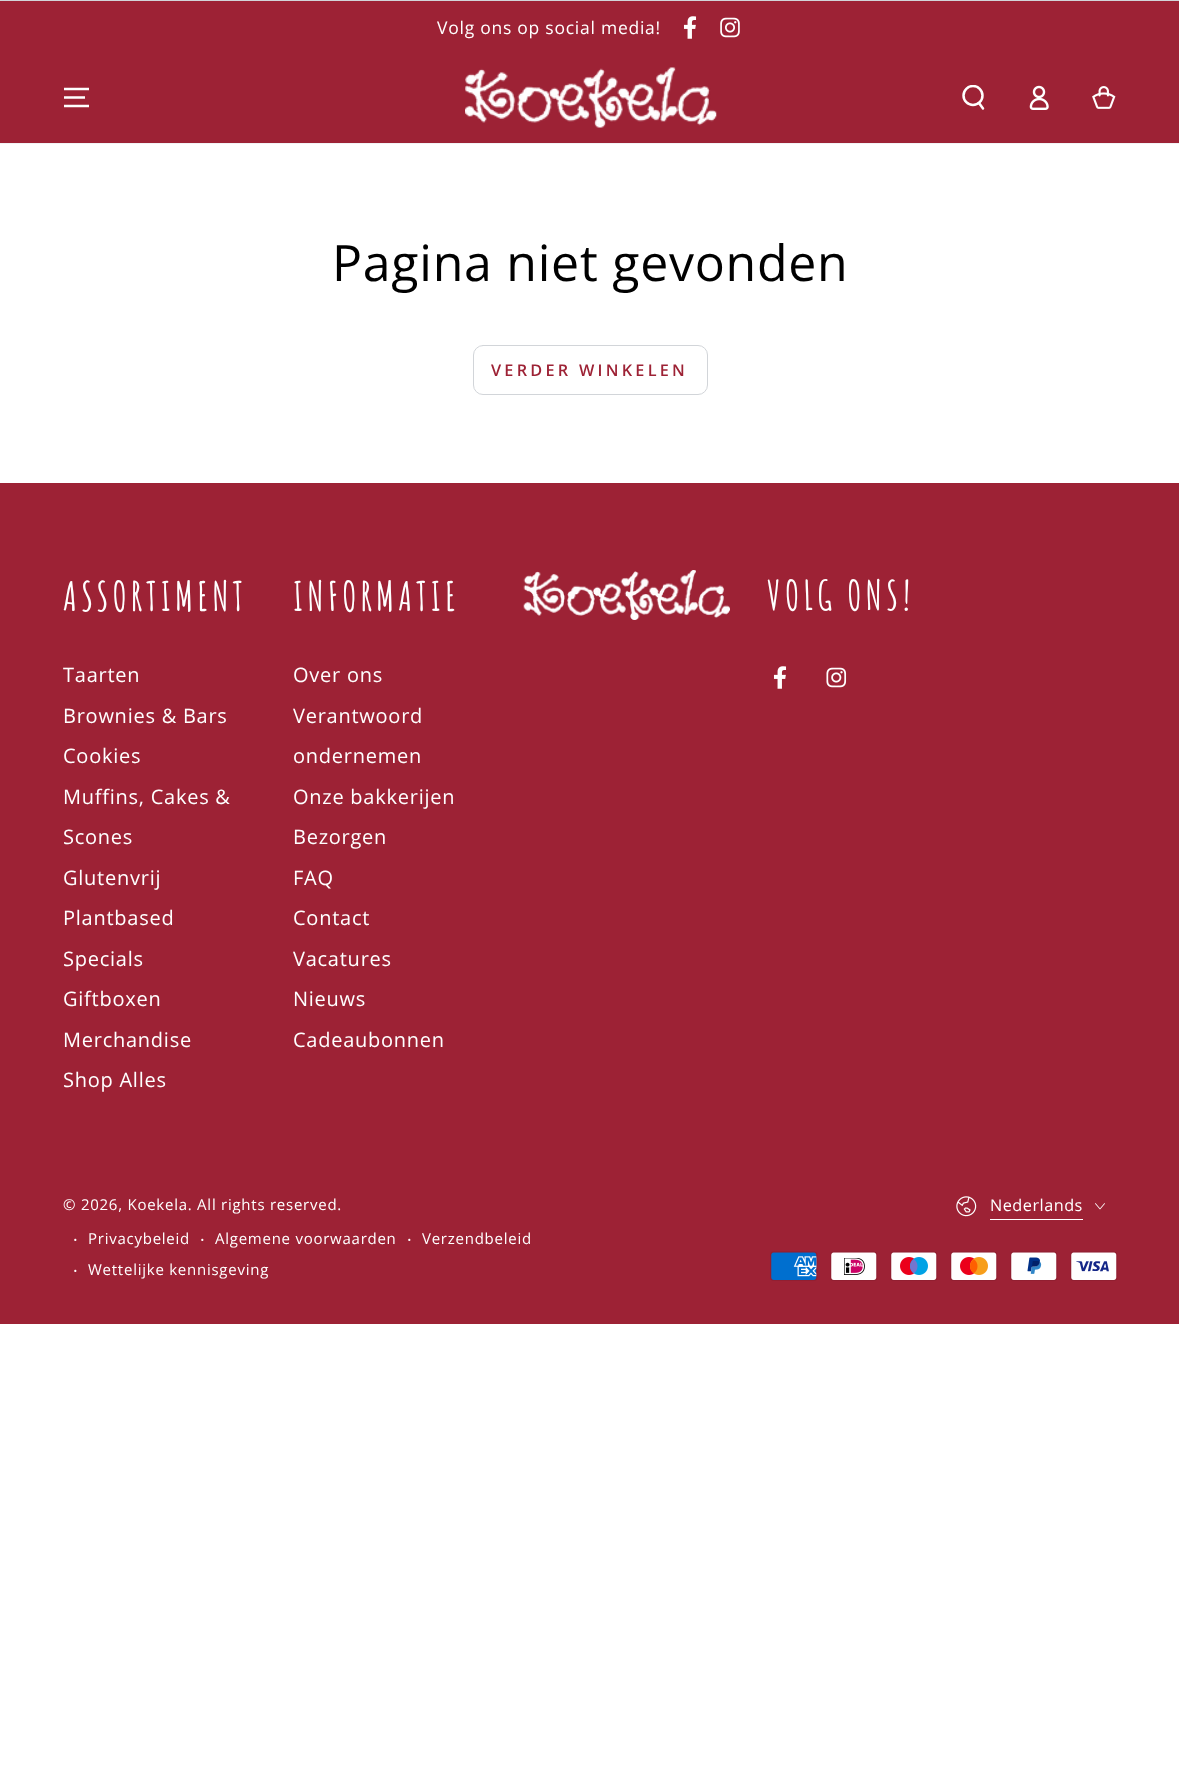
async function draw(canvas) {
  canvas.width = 1179
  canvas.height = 1777
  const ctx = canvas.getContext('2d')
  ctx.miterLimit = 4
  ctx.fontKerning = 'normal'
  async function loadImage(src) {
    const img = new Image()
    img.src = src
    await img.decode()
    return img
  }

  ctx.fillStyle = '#fff'
  ctx.fillRect(0, 0, 1179, 1777)
  ctx.fillStyle = '#d2d5d9'
  ctx.fillRect(0, 0, 1179, 1)
  ctx.fillStyle = '#9d2235'
  ctx.fillRect(0, 1, 1179, 142)
  ctx.letterSpacing = '0.75px'
  ctx.font = '17.5px Open Sans'
  ctx.fillStyle = '#fff'
  ctx.fillText('Volg ons op social media!', 437, 34)
  ctx.drawImage(await loadImage('image0.png'), 683, 16, 14, 23)
  ctx.drawImage(await loadImage('image1.png'), 720, 17, 20, 21)
  ctx.fillStyle = '#f2f2f4'
  ctx.fillRect(0, 143, 1179, 1)
  ctx.beginPath()
  ctx.moveTo(64, 106)
  ctx.lineTo(89, 106)
  ctx.moveTo(64, 97.5)
  ctx.lineTo(85, 97.5)
  ctx.moveTo(64, 89)
  ctx.lineTo(89, 89)
  ctx.strokeStyle = '#fff'
  ctx.lineWidth = 2.3
  ctx.stroke()
  ctx.drawImage(await loadImage('image2.png'), 465, 67, 252, 61)
  ctx.save()
  ctx.beginPath()
  ctx.rect(961, 85, 25, 25)
  ctx.clip()
  ctx.beginPath()
  ctx.arc(973, 95.5, 9.5, 0, 2 * Math.PI)
  ctx.lineWidth = 2.5
  ctx.stroke()
  ctx.restore()
  ctx.beginPath()
  ctx.moveTo(979, 103)
  ctx.lineTo(983, 108.5)
  ctx.lineWidth = 2.5
  ctx.lineCap = 'round'
  ctx.stroke()
  ctx.drawImage(await loadImage('image3.png'), 1029, 85, 20, 25)
  ctx.drawImage(await loadImage('image4.png'), 1092, 86, 24, 23)
  ctx.font = '50px Open Sans'
  ctx.fillStyle = '#000'
  ctx.fillText('Pagina niet gevonden', 332, 281)
  ctx.beginPath()
  ctx.roundRect(473.5, 345.5, 234, 49, 9.5)
  ctx.strokeStyle = '#d2d5d9'
  ctx.lineWidth = 1
  ctx.stroke()
  ctx.letterSpacing = '3.25px'
  ctx.font = '600 16.25px Open Sans'
  ctx.fillStyle = '#9d2235'
  ctx.fillText('VERDER WINKELEN', 491, 376)
  ctx.fillRect(0, 483, 1179, 841)
  ctx.letterSpacing = '4px'
  ctx.font = 'bold 40px Amatic SC'
  ctx.fillStyle = '#fff'
  ctx.fillText('ASSORTIMENT', 63, 611)
  ctx.letterSpacing = '0.75px'
  ctx.font = '20px Open Sans'
  ctx.fillText('Taarten', 63, 682)
  ctx.fillText('Brownies & Bars', 63, 723)
  ctx.fillText('Cookies', 63, 763)
  ctx.fillText('Muffins, Cakes &', 63, 804)
  ctx.fillText('Scones', 63, 844)
  ctx.fillText('Glutenvrij', 63, 885)
  ctx.fillText('Plantbased', 63, 925)
  ctx.fillText('Specials', 63, 966)
  ctx.fillText('Giftboxen', 63, 1006)
  ctx.fillText('Merchandise', 63, 1047)
  ctx.fillText('Shop Alles', 63, 1087)
  ctx.letterSpacing = '4px'
  ctx.font = 'bold 40px Amatic SC'
  ctx.fillText('INFORMATIE', 293, 611)
  ctx.letterSpacing = '0.75px'
  ctx.font = '20px Open Sans'
  ctx.fillText('Over ons', 293, 682)
  ctx.fillText('Verantwoord', 293, 723)
  ctx.fillText('ondernemen', 293, 763)
  ctx.fillText('Onze bakkerijen', 293, 804)
  ctx.fillText('Bezorgen', 293, 844)
  ctx.fillText('FAQ', 293, 885)
  ctx.fillText('Contact', 293, 925)
  ctx.fillText('Vacatures', 293, 966)
  ctx.fillText('Nieuws', 293, 1006)
  ctx.fillText('Cadeaubonnen', 293, 1047)
  ctx.drawImage(await loadImage('image5.png'), 523, 570, 207, 50)
  ctx.letterSpacing = '4px'
  ctx.font = 'bold 40px Amatic SC'
  ctx.fillText('VOLG ONS!', 767, 610)
  ctx.drawImage(await loadImage('image0.png'), 773, 666, 14, 23)
  ctx.drawImage(await loadImage('image6.png'), 826, 667, 21, 21)
  ctx.letterSpacing = '0.75px'
  ctx.font = '15px Open Sans'
  ctx.fillText('© 2026, Koekela. All rights reserved.', 63, 1210)
  ctx.font = '17.5px Open Sans'
  ctx.fillText('·', 73, 1246)
  ctx.font = '15px Open Sans'
  ctx.fillText('Privacybeleid', 88, 1244)
  ctx.font = '17.5px Open Sans'
  ctx.fillText('·', 200, 1246)
  ctx.font = '15px Open Sans'
  ctx.fillText('Algemene voorwaarden', 215, 1244)
  ctx.font = '17.5px Open Sans'
  ctx.fillText('·', 407, 1246)
  ctx.font = '15px Open Sans'
  ctx.fillText('Verzendbeleid', 422, 1244)
  ctx.font = '17.5px Open Sans'
  ctx.fillText('·', 73, 1277)
  ctx.font = '15px Open Sans'
  ctx.fillText('Wettelijke kennisgeving', 88, 1275)
  ctx.drawImage(await loadImage('image7.png'), 956, 1196, 21, 21)
  ctx.fillRect(990, 1219, 93, 1)
  ctx.letterSpacing = '0.5px'
  ctx.font = '16.25px Open Sans'
  ctx.fillText('Nederlands', 990, 1211)
  ctx.drawImage(await loadImage('image8.png'), 1095, 1203, 10, 7)
  ctx.drawImage(await loadImage('image9.png'), 770, 1251, 48, 30)
  ctx.drawImage(await loadImage('image10.png'), 830, 1251, 48, 30)
  ctx.drawImage(await loadImage('image11.png'), 890, 1251, 48, 30)
  ctx.drawImage(await loadImage('image12.png'), 950, 1251, 48, 30)
  ctx.drawImage(await loadImage('image13.png'), 1010, 1251, 48, 30)
  ctx.drawImage(await loadImage('image14.png'), 1070, 1251, 48, 30)
}

draw(document.querySelector('canvas'))
